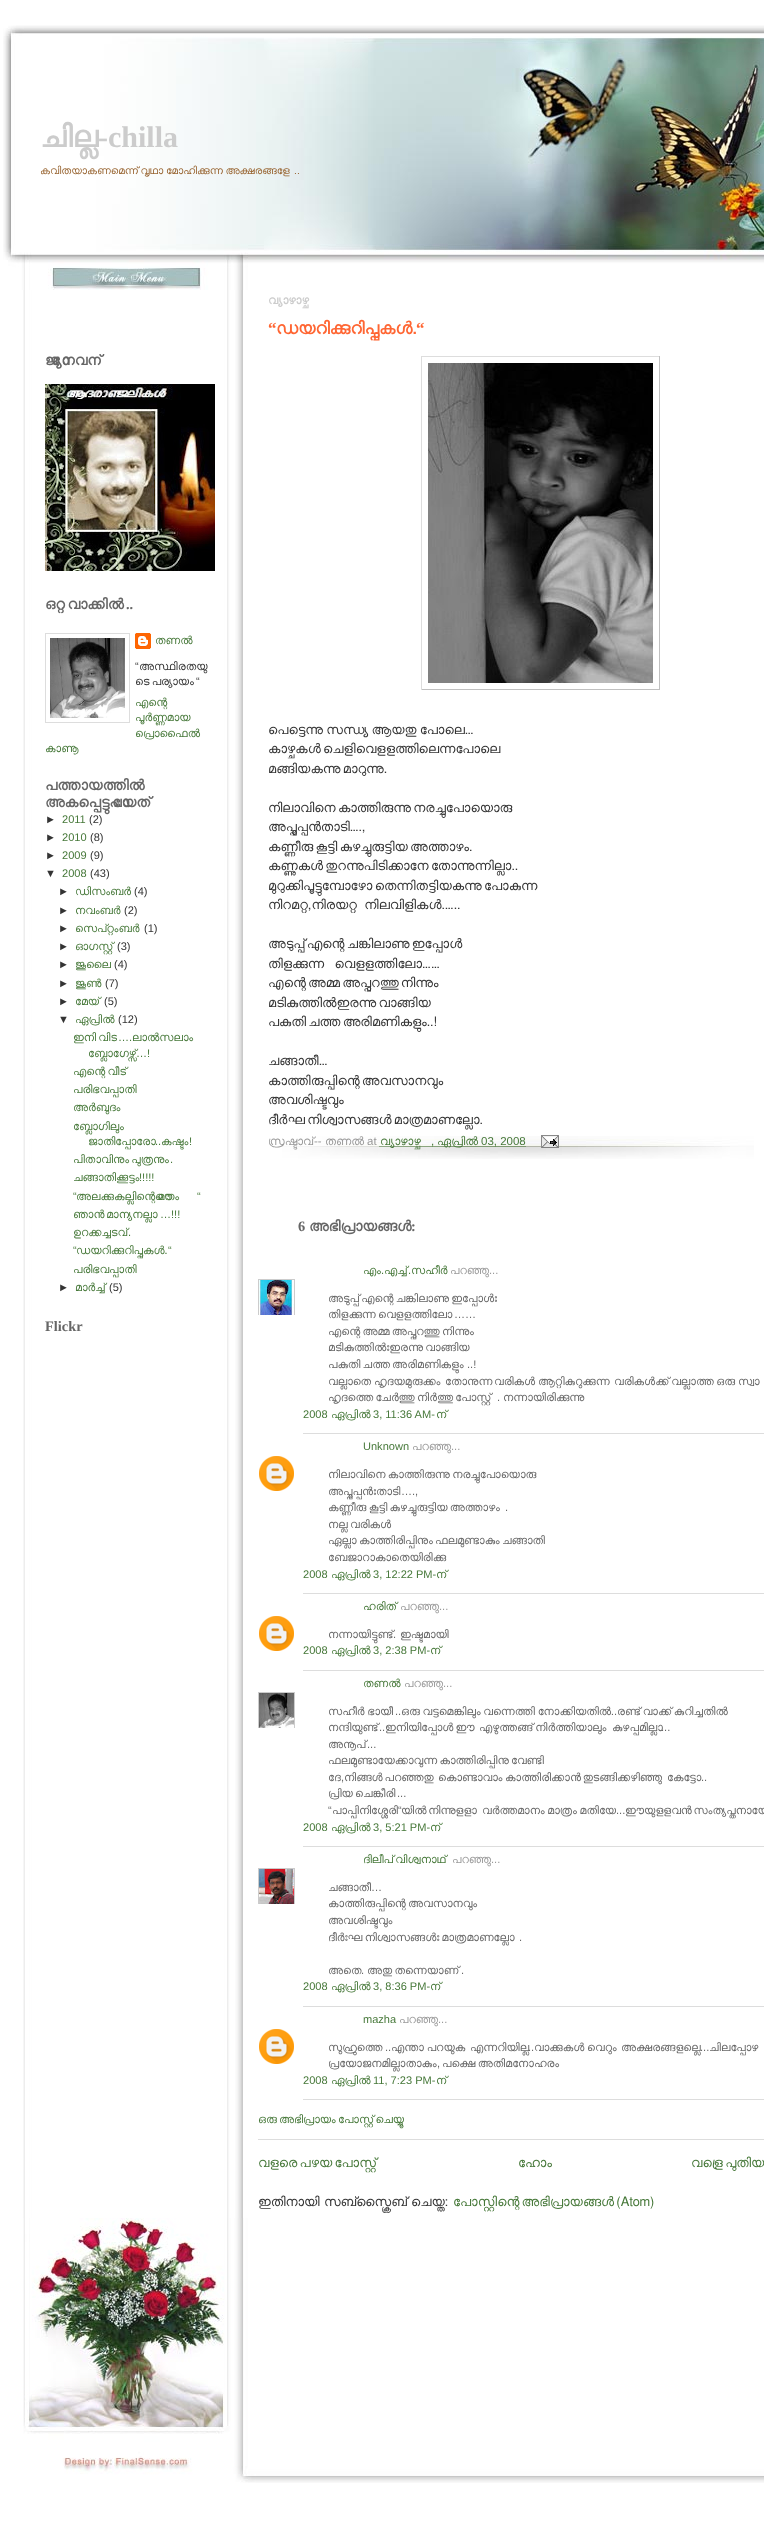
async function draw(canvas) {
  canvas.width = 764
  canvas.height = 2523
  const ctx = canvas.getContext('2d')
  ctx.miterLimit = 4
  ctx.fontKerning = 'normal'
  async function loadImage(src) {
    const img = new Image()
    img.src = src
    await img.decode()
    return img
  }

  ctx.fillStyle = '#fff'
  ctx.fillRect(0, 0, 764, 2523)
  ctx.drawImage(await loadImage('image0.png'), 3, 25, 761, 265)
  ctx.font = 'bold 30px FreeSans'
  ctx.fillStyle = '#ccc'
  ctx.fillText('ചില്ല', 40, 147)
  ctx.font = 'bold 30px Liberation Serif'
  ctx.fillText('-chilla', 98, 147)
  ctx.font = '10.4px FreeSans'
  ctx.fillStyle = '#963'
  ctx.fillText('കവിതയാകണമെന്ന് വൃഥാ മോഹിക്കുന്ന അക്ഷരങ്ങളേ', 40, 174)
  ctx.font = '10.4px Liberation Sans'
  ctx.fillText('..', 294, 174)
  ctx.drawImage(await loadImage('image1.png'), 23, 290, 220, 1928)
  ctx.font = 'bold 14.4px FreeSans'
  ctx.fillStyle = '#666'
  ctx.fillText('ജ്യോനവന്', 45, 365)
  ctx.drawImage(await loadImage('image2.png'), 45, 384, 170, 187)
  ctx.wordSpacing = '-1px'
  ctx.fillText('ഒറ്റ വാക്കിൽ', 45, 609)
  ctx.wordSpacing = '0px'
  ctx.font = 'bold 14.4px Liberation Serif'
  ctx.fillText('..', 126, 609)
  ctx.strokeStyle = '#ddd'
  ctx.strokeRect(45.5, 633.5, 84, 89)
  ctx.drawImage(await loadImage('image3.png'), 50, 638, 75, 80)
  ctx.drawImage(await loadImage('image4.png'), 135, 633, 16, 16)
  ctx.font = '11.05px FreeSans'
  ctx.fillStyle = '#467839'
  ctx.fillText('തണല്‍', 155, 644)
  ctx.font = '11.05px Liberation Sans'
  ctx.fillStyle = '#333'
  ctx.fillText('“', 135, 670)
  ctx.font = '11.05px FreeSans'
  ctx.fillText('അസ്ഥിരതയു', 139, 670)
  ctx.wordSpacing = '-0.5px'
  ctx.fillText('ടെ പര്യായം', 135, 685)
  ctx.wordSpacing = '0px'
  ctx.font = '11.05px Liberation Sans'
  ctx.fillText('“', 196, 685)
  ctx.font = '11.05px FreeSans'
  ctx.fillStyle = '#467839'
  ctx.fillText('എന്റെ', 135, 706)
  ctx.fillText('പൂര്‍ണ്ണമായ', 135, 721)
  ctx.fillText('പ്രൊഫൈൽ', 135, 737)
  ctx.fillText('കാണൂ', 45, 752)
  ctx.font = 'bold 14.4px FreeSans'
  ctx.fillStyle = '#666'
  ctx.fillText('പത്തായത്തിൽ', 45, 790)
  ctx.fillText('അകപ്പെട്ടുപോയത്', 45, 807)
  ctx.font = '11.05px Liberation Sans'
  ctx.fillStyle = '#333'
  ctx.fillText('►', 45, 823)
  ctx.fillStyle = '#467839'
  ctx.fillText('2011', 62, 823)
  ctx.fillStyle = '#333'
  ctx.fillText('(2)', 89, 823)
  ctx.fillText('►', 45, 841)
  ctx.fillStyle = '#467839'
  ctx.fillText('2010', 62, 841)
  ctx.fillStyle = '#333'
  ctx.fillText('(8)', 90, 841)
  ctx.fillText('►', 45, 859)
  ctx.fillStyle = '#467839'
  ctx.fillText('2009', 62, 859)
  ctx.fillStyle = '#333'
  ctx.fillText('(9)', 90, 859)
  ctx.fillText('▼', 45, 877)
  ctx.fillStyle = '#467839'
  ctx.fillText('2008', 62, 877)
  ctx.fillStyle = '#333'
  ctx.fillText('(43)', 90, 877)
  ctx.fillText('►', 58, 895)
  ctx.font = '11.05px FreeSans'
  ctx.fillStyle = '#467839'
  ctx.fillText('ഡിസംബർ', 75, 895)
  ctx.font = '11.05px Liberation Sans'
  ctx.fillStyle = '#333'
  ctx.fillText('(4)', 134, 895)
  ctx.fillText('►', 58, 914)
  ctx.font = '11.05px FreeSans'
  ctx.fillStyle = '#467839'
  ctx.fillText('നവംബർ', 75, 914)
  ctx.font = '11.05px Liberation Sans'
  ctx.fillStyle = '#333'
  ctx.fillText('(2)', 124, 914)
  ctx.fillText('►', 58, 932)
  ctx.font = '11.05px FreeSans'
  ctx.fillStyle = '#467839'
  ctx.fillText('സെപ്റ്റംബർ', 75, 932)
  ctx.font = '11.05px Liberation Sans'
  ctx.fillStyle = '#333'
  ctx.fillText('(1)', 144, 932)
  ctx.fillText('►', 58, 950)
  ctx.font = '11.05px FreeSans'
  ctx.fillStyle = '#467839'
  ctx.fillText('ഓഗസ്റ്റ്', 75, 950)
  ctx.font = '11.05px Liberation Sans'
  ctx.fillStyle = '#333'
  ctx.fillText('(3)', 117, 950)
  ctx.fillText('►', 58, 968)
  ctx.font = '11.05px FreeSans'
  ctx.fillStyle = '#467839'
  ctx.fillText('ജൂലൈ', 75, 968)
  ctx.font = '11.05px Liberation Sans'
  ctx.fillStyle = '#333'
  ctx.fillText('(4)', 114, 968)
  ctx.fillText('►', 58, 987)
  ctx.font = '11.05px FreeSans'
  ctx.fillStyle = '#467839'
  ctx.fillText('ജൂൺ', 75, 987)
  ctx.font = '11.05px Liberation Sans'
  ctx.fillStyle = '#333'
  ctx.fillText('(7)', 105, 987)
  ctx.fillText('►', 58, 1005)
  ctx.font = '11.05px FreeSans'
  ctx.fillStyle = '#467839'
  ctx.fillText('മേയ്', 75, 1005)
  ctx.font = '11.05px Liberation Sans'
  ctx.fillStyle = '#333'
  ctx.fillText('(5)', 104, 1005)
  ctx.fillText('▼', 58, 1023)
  ctx.font = '11.05px FreeSans'
  ctx.fillStyle = '#467839'
  ctx.fillText('ഏപ്രിൽ', 75, 1023)
  ctx.font = '11.05px Liberation Sans'
  ctx.fillStyle = '#333'
  ctx.fillText('(12)', 118, 1023)
  ctx.wordSpacing = '-0.5px'
  ctx.font = '11.05px FreeSans'
  ctx.fillStyle = '#467839'
  ctx.fillText('ഇനി വിട', 73, 1041)
  ctx.wordSpacing = '0px'
  ctx.font = '11.05px Liberation Sans'
  ctx.fillText('….', 118, 1041)
  ctx.font = '11.05px FreeSans'
  ctx.fillText('ലാല്‍സലാം', 132, 1041)
  ctx.fillText('ബ്ലോഗേഴ്സ്', 88, 1057)
  ctx.font = '11.05px Liberation Sans'
  ctx.fillText('…!', 136, 1057)
  ctx.wordSpacing = '-0.5px'
  ctx.font = '11.05px FreeSans'
  ctx.fillText('എന്റെ വീട്', 73, 1075)
  ctx.wordSpacing = '0px'
  ctx.fillText('പരിഭവപ്പാതി', 73, 1093)
  ctx.fillText('അര്‍ബുദം', 73, 1111)
  ctx.fillText('ബ്ലോഗിലും', 73, 1130)
  ctx.fillText('ജാതിപ്പോരോ', 88, 1145)
  ctx.font = '11.05px Liberation Sans'
  ctx.fillText('..', 155, 1145)
  ctx.font = '11.05px FreeSans'
  ctx.fillText('കഷ്ടം', 161, 1145)
  ctx.font = '11.05px Liberation Sans'
  ctx.fillText('!', 189, 1145)
  ctx.wordSpacing = '-0.5px'
  ctx.font = '11.05px FreeSans'
  ctx.fillText('പിതാവിനും പുത്രനും', 73, 1163)
  ctx.wordSpacing = '0px'
  ctx.font = '11.05px Liberation Sans'
  ctx.fillText('.', 170, 1163)
  ctx.font = '11.05px FreeSans'
  ctx.fillText('ചങ്ങാതിക്കൂട്ടം', 73, 1181)
  ctx.font = '11.05px Liberation Sans'
  ctx.fillText('!!!!!', 139, 1181)
  ctx.fillText('“', 73, 1200)
  ctx.wordSpacing = '-0.5px'
  ctx.font = '11.05px FreeSans'
  ctx.fillText('അലക്കുകല്ലിന്റെ മൌനം', 76, 1200)
  ctx.wordSpacing = '0px'
  ctx.font = '11.05px Liberation Sans'
  ctx.fillText('“', 197, 1200)
  ctx.wordSpacing = '-1px'
  ctx.font = '11.05px FreeSans'
  ctx.fillText('ഞാന്‍ മാന്യനല്ലാ', 73, 1218)
  ctx.wordSpacing = '0px'
  ctx.font = '11.05px Liberation Sans'
  ctx.fillText('…!!!', 160, 1218)
  ctx.font = '11.05px FreeSans'
  ctx.fillText('ഉറക്കച്ചടവ്', 73, 1236)
  ctx.font = '11.05px Liberation Sans'
  ctx.fillText('.', 128, 1236)
  ctx.fillText('“', 73, 1254)
  ctx.font = '11.05px FreeSans'
  ctx.fillText('ഡയറിക്കുറിപ്പുകള്‍.', 76, 1254)
  ctx.font = '11.05px Liberation Sans'
  ctx.fillText('“', 168, 1254)
  ctx.font = '11.05px FreeSans'
  ctx.fillText('പരിഭവപ്പാതി', 73, 1273)
  ctx.font = '11.05px Liberation Sans'
  ctx.fillStyle = '#333'
  ctx.fillText('►', 58, 1291)
  ctx.font = '11.05px FreeSans'
  ctx.fillStyle = '#467839'
  ctx.fillText('മാർച്ച്', 75, 1291)
  ctx.font = '11.05px Liberation Sans'
  ctx.fillStyle = '#333'
  ctx.fillText('(5)', 109, 1291)
  ctx.font = 'bold 14.4px Liberation Serif'
  ctx.fillStyle = '#666'
  ctx.fillText('Flickr', 45, 1331)
  ctx.font = 'bold 11.5px FreeSans'
  ctx.fillStyle = '#ccc'
  ctx.fillText('വ്യാഴാഴ്ച', 268, 304)
  ctx.drawImage(await loadImage('image5.png'), 282, 1136, 472, 23)
  ctx.font = 'bold 17px Liberation Serif'
  ctx.fillStyle = '#f63'
  ctx.fillText('“', 268, 334)
  ctx.font = 'bold 17px FreeSans'
  ctx.fillText('ഡയറിക്കുറിപ്പുകള്‍.', 276, 334)
  ctx.font = 'bold 17px Liberation Serif'
  ctx.fillText('“', 416, 334)
  ctx.fillStyle = '#ddd'
  ctx.fillRect(421, 356, 239, 1)
  ctx.fillStyle = '#c0c0c0'
  ctx.fillRect(659, 356, 1, 334)
  ctx.fillRect(421, 689, 239, 1)
  ctx.fillStyle = '#ddd'
  ctx.fillRect(421, 356, 1, 334)
  ctx.drawImage(await loadImage('image6.png'), 428, 363, 225, 320)
  ctx.font = '13px FreeSans'
  ctx.fillStyle = '#333'
  ctx.fillText('പെട്ടെന്നു സന്ധ്യ ആയതു പോലെ…', 268, 734)
  ctx.wordSpacing = '-1px'
  ctx.fillText('കാഴ്ചകള്‍ ചെളിവെളളത്തിലെന്നപോലെ', 268, 753)
  ctx.fillText('മങ്ങിയകന്നു മാറുന്നു.', 268, 773)
  ctx.fillText('നിലാവിനെ കാത്തിരുന്നു നരച്ചുപോയൊരു', 268, 812)
  ctx.wordSpacing = '0px'
  ctx.fillText('അപ്പൂപ്പന്‍താടി….,', 268, 831)
  ctx.wordSpacing = '-1px'
  ctx.fillText('കണ്ണീരു കൂട്ടി കുഴച്ചുരുട്ടിയ അത്താഴം.', 268, 851)
  ctx.fillText('കണ്ണുകള്‍ തുറന്നുപിടിക്കാനേ തോന്നുന്നില്ലാ..', 268, 870)
  ctx.fillText('മുറുക്കിപൂട്ടുമ്പോഴോ തെന്നിതട്ടിയകന്നു പോകുന്ന', 268, 890)
  ctx.wordSpacing = '4px'
  ctx.fillText('നിറമറ്റ,നിരയറ്റ നിലവിളികള്‍.…..', 268, 909)
  ctx.wordSpacing = '-1px'
  ctx.fillText('അടുപ്പ് എന്റെ ചങ്കിലാണു ഇപ്പോള്‍', 268, 948)
  ctx.wordSpacing = '7px'
  ctx.fillText('തിളക്കുന്ന വെളളത്തിലോ……', 268, 968)
  ctx.wordSpacing = '-1px'
  ctx.fillText('എന്റെ അമ്മ അപ്പുറത്തു നിന്നും', 268, 987)
  ctx.fillText('മടികുത്തില്‍ഇരന്നു വാങ്ങിയ', 268, 1007)
  ctx.fillText('പകുതി ചത്ത അരിമണികളും..!', 268, 1026)
  ctx.wordSpacing = '0px'
  ctx.fillText('ചങ്ങാതീ…', 268, 1065)
  ctx.wordSpacing = '-1px'
  ctx.fillText('കാത്തിരുപ്പിന്റെ അവസാനവും', 268, 1085)
  ctx.wordSpacing = '0px'
  ctx.fillText('അവശിഷ്ടവും', 268, 1104)
  ctx.wordSpacing = '-1px'
  ctx.fillText('ദീര്‍ഘ നിശ്വാസങ്ങള്‍ മാത്രമാണല്ലോ.', 268, 1124)
  ctx.wordSpacing = '0px'
  ctx.font = '11.5px FreeSans'
  ctx.fillStyle = '#999'
  ctx.fillText('സ്രഷ്ടാവ്', 268, 1145)
  ctx.font = '11.5px Liberation Sans'
  ctx.fillText('--', 314, 1145)
  ctx.font = '11.5px FreeSans'
  ctx.fillText('തണല്‍', 325, 1145)
  ctx.font = '11.5px Liberation Sans'
  ctx.fillText('at', 367, 1145)
  ctx.beginPath()
  ctx.moveTo(379.5, 1146.5)
  ctx.lineTo(526, 1146.5)
  ctx.strokeStyle = '#467839'
  ctx.setLineDash([1, 1])
  ctx.stroke()
  ctx.font = '11.5px FreeSans'
  ctx.fillStyle = '#467839'
  ctx.fillText('വ്യാഴാഴ്ച', 380, 1145)
  ctx.fillText('ഏപ്രിൽ', 437, 1145)
  ctx.font = '11.5px Liberation Sans'
  ctx.fillText('03, 2008', 481, 1145)
  ctx.drawImage(await loadImage('image7.png'), 541, 1135, 18, 13)
  ctx.fillText(',', 431, 1145)
  ctx.font = 'bold 14.4px Liberation Serif'
  ctx.fillStyle = '#666'
  ctx.fillText('6', 298, 1231)
  ctx.font = 'bold 14.4px FreeSans'
  ctx.fillText('അഭിപ്രായങ്ങൾ', 309, 1231)
  ctx.font = 'bold 14.4px Liberation Serif'
  ctx.fillText(':', 411, 1231)
  ctx.font = '11.05px FreeSans'
  ctx.fillStyle = '#467839'
  ctx.fillText('എം', 363, 1274)
  ctx.font = '11.05px Liberation Sans'
  ctx.fillText('.', 381, 1274)
  ctx.font = '11.05px FreeSans'
  ctx.fillText('എച്ച്', 384, 1274)
  ctx.font = '11.05px Liberation Sans'
  ctx.fillText('.', 408, 1274)
  ctx.font = '11.05px FreeSans'
  ctx.fillText('സഹീര്‍', 411, 1274)
  ctx.fillStyle = '#999'
  ctx.fillText('പറഞ്ഞു', 450, 1274)
  ctx.font = '11.05px Liberation Sans'
  ctx.fillText('...', 489, 1274)
  ctx.save()
  ctx.beginPath()
  ctx.rect(258, 1279, 37, 36)
  ctx.clip()
  ctx.strokeStyle = '#ccc'
  ctx.setLineDash([])
  ctx.strokeRect(258.5, 1279.5, 36, 36)
  ctx.restore()
  ctx.drawImage(await loadImage('image8.png'), 259, 1280, 35, 35)
  ctx.wordSpacing = '-0.5px'
  ctx.font = '11.05px FreeSans'
  ctx.fillStyle = '#666'
  ctx.fillText('അടുപ്പ് എന്റെ ചങ്കിലാണു ഇപ്പോള്‍ഃ', 328, 1302)
  ctx.fillText('തിളക്കുന്ന വെളളത്തിലോ', 328, 1318)
  ctx.wordSpacing = '0px'
  ctx.font = '11.05px Liberation Sans'
  ctx.fillText('……', 454, 1318)
  ctx.wordSpacing = '-0.5px'
  ctx.font = '11.05px FreeSans'
  ctx.fillText('എന്റെ അമ്മ അപ്പുറത്തു നിന്നും', 328, 1335)
  ctx.fillText('മടികുത്തില്‍ഃഇരന്നു വാങ്ങിയ', 328, 1351)
  ctx.fillText('പകുതി ചത്ത അരിമണികളും', 328, 1368)
  ctx.wordSpacing = '0px'
  ctx.font = '11.05px Liberation Sans'
  ctx.fillText('..!', 467, 1368)
  ctx.font = '11.05px FreeSans'
  ctx.fillText('വല്ലാതെ ഹൃദയമുരുക്കം', 328, 1385)
  ctx.fillText('തോനുന്ന', 445, 1385)
  ctx.fillText('വരികള്‍ ആറ്റികുറുക്കുന്ന', 494, 1385)
  ctx.fillText('വരികള്‍ക്ക് വല്ലാത്ത ഒരു സ്വാ', 614, 1385)
  ctx.wordSpacing = '-0.5px'
  ctx.fillText('ഹൃദത്തെ ചേര്‍ത്തു നിര്‍ത്തു പോസ്റ്റ്', 328, 1401)
  ctx.wordSpacing = '0px'
  ctx.font = '11.05px Liberation Sans'
  ctx.fillText('‌.', 497, 1401)
  ctx.font = '11.05px FreeSans'
  ctx.fillText('നന്നായിരിക്കുന്നു', 503, 1401)
  ctx.fillStyle = '#ddd'
  ctx.fillRect(303, 1433, 461, 1)
  ctx.font = '11.05px Liberation Sans'
  ctx.fillStyle = '#467839'
  ctx.fillText('2008', 303, 1418)
  ctx.font = '11.05px FreeSans'
  ctx.fillText('ഏപ്രിൽ', 331, 1418)
  ctx.font = '11.05px Liberation Sans'
  ctx.fillText('3, 11:36 AM-', 373, 1418)
  ctx.font = '11.05px FreeSans'
  ctx.fillText('ന്', 436, 1418)
  ctx.font = '11.05px Liberation Sans'
  ctx.fillText('Unknown', 363, 1450)
  ctx.font = '11.05px FreeSans'
  ctx.fillStyle = '#999'
  ctx.fillText('പറഞ്ഞു', 412, 1450)
  ctx.font = '11.05px Liberation Sans'
  ctx.fillText('...', 451, 1450)
  ctx.drawImage(await loadImage('image9.png'), 259, 1456, 35, 35)
  ctx.wordSpacing = '-0.5px'
  ctx.font = '11.05px FreeSans'
  ctx.fillStyle = '#666'
  ctx.fillText('നിലാവിനെ കാത്തിരുന്നു നരച്ചുപോയൊരു', 328, 1478)
  ctx.wordSpacing = '0px'
  ctx.fillText('അപ്പൂപ്പന്‍ഃതാടി', 328, 1495)
  ctx.font = '11.05px Liberation Sans'
  ctx.fillText('….,', 401, 1495)
  ctx.wordSpacing = '-0.5px'
  ctx.font = '11.05px FreeSans'
  ctx.fillText('കണ്ണീരു കൂട്ടി കുഴച്ചുരുട്ടിയ അത്താഴം', 328, 1511)
  ctx.wordSpacing = '0px'
  ctx.font = '11.05px Liberation Sans'
  ctx.fillText('.', 505, 1511)
  ctx.wordSpacing = '-0.5px'
  ctx.font = '11.05px FreeSans'
  ctx.fillText('നല്ല വരികള്‍', 328, 1528)
  ctx.fillText('ഏല്ലാ കാത്തിരിപ്പിനും ഫലമുണ്ടാകും ചങ്ങാതി', 328, 1544)
  ctx.wordSpacing = '0px'
  ctx.fillText('ബേജാറാകാതെയിരിക്കു', 328, 1561)
  ctx.fillStyle = '#ddd'
  ctx.fillRect(303, 1593, 461, 1)
  ctx.font = '11.05px Liberation Sans'
  ctx.fillStyle = '#467839'
  ctx.fillText('2008', 303, 1578)
  ctx.font = '11.05px FreeSans'
  ctx.fillText('ഏപ്രിൽ', 331, 1578)
  ctx.font = '11.05px Liberation Sans'
  ctx.fillText('3, 12:22 PM-', 373, 1578)
  ctx.font = '11.05px FreeSans'
  ctx.fillText('ന്', 436, 1578)
  ctx.fillText('ഹരിത്', 363, 1610)
  ctx.fillStyle = '#999'
  ctx.fillText('പറഞ്ഞു', 400, 1610)
  ctx.font = '11.05px Liberation Sans'
  ctx.fillText('...', 439, 1610)
  ctx.drawImage(await loadImage('image9.png'), 259, 1616, 35, 35)
  ctx.font = '11.05px FreeSans'
  ctx.fillStyle = '#666'
  ctx.fillText('നന്നായിട്ടുണ്ട്', 328, 1638)
  ctx.font = '11.05px Liberation Sans'
  ctx.fillText('.', 393, 1638)
  ctx.font = '11.05px FreeSans'
  ctx.fillText('ഇഷ്ടമായി', 400, 1638)
  ctx.fillStyle = '#ddd'
  ctx.fillRect(303, 1670, 461, 1)
  ctx.font = '11.05px Liberation Sans'
  ctx.fillStyle = '#467839'
  ctx.fillText('2008', 303, 1654)
  ctx.font = '11.05px FreeSans'
  ctx.fillText('ഏപ്രിൽ', 331, 1654)
  ctx.font = '11.05px Liberation Sans'
  ctx.fillText('3, 2:38 PM-', 373, 1654)
  ctx.font = '11.05px FreeSans'
  ctx.fillText('ന്', 430, 1654)
  ctx.fillText('തണല്‍', 363, 1687)
  ctx.fillStyle = '#999'
  ctx.fillText('പറഞ്ഞു', 404, 1687)
  ctx.font = '11.05px Liberation Sans'
  ctx.fillText('...', 443, 1687)
  ctx.save()
  ctx.beginPath()
  ctx.rect(258, 1692, 37, 36)
  ctx.clip()
  ctx.strokeStyle = '#ccc'
  ctx.setLineDash([])
  ctx.strokeRect(258.5, 1692.5, 36, 36)
  ctx.restore()
  ctx.drawImage(await loadImage('image10.png'), 259, 1693, 35, 35)
  ctx.font = '11.05px FreeSans'
  ctx.fillStyle = '#666'
  ctx.fillText('സഹീര്‍ ഭായീ', 328, 1715)
  ctx.font = '11.05px Liberation Sans'
  ctx.fillText('..', 395, 1715)
  ctx.font = '11.05px FreeSans'
  ctx.fillText('ഒരു വട്ടമെങ്കിലും വന്നെത്തി നോക്കിയതില്‍.', 401, 1715)
  ctx.font = '11.05px Liberation Sans'
  ctx.fillText('.', 614, 1715)
  ctx.font = '11.05px FreeSans'
  ctx.fillText('രണ്ട് വാക്ക് കുറിച്ചതില്‍', 617, 1715)
  ctx.fillText('നന്ദിയുണ്ട്', 328, 1731)
  ctx.font = '11.05px Liberation Sans'
  ctx.fillText('..', 379, 1731)
  ctx.wordSpacing = '-0.5px'
  ctx.font = '11.05px FreeSans'
  ctx.fillText('ഇനിയിപ്പോള്‍ ഈ', 385, 1731)
  ctx.wordSpacing = '0px'
  ctx.fillText('എഴുത്തങ്ങ് നിര്‍ത്തിയാലും', 479, 1731)
  ctx.fillText('കുഴപ്പമില്ലാ', 612, 1731)
  ctx.font = '11.05px Liberation Sans'
  ctx.fillText('...', 661, 1731)
  ctx.font = '11.05px FreeSans'
  ctx.fillText('അനൂപ്', 328, 1748)
  ctx.font = '11.05px Liberation Sans'
  ctx.fillText('...', 367, 1748)
  ctx.wordSpacing = '-0.5px'
  ctx.font = '11.05px FreeSans'
  ctx.fillText('ഫലമുണ്ടായേക്കാവുന്ന കാത്തിരിപ്പിനു വേണ്ടി', 328, 1764)
  ctx.wordSpacing = '0px'
  ctx.fillText('ദേ', 328, 1781)
  ctx.font = '11.05px Liberation Sans'
  ctx.fillText(',', 341, 1781)
  ctx.wordSpacing = '-1px'
  ctx.font = '11.05px FreeSans'
  ctx.fillText('നിങ്ങള്‍ പറഞ്ഞതു', 344, 1781)
  ctx.wordSpacing = '0px'
  ctx.fillText('കൊണ്ടാവാം', 438, 1781)
  ctx.wordSpacing = '-1px'
  ctx.fillText('കാത്തിരിക്കാന്‍ തുടങ്ങിക്കഴിഞ്ഞു', 505, 1781)
  ctx.wordSpacing = '0px'
  ctx.fillText('കേട്ടോ', 667, 1781)
  ctx.font = '11.05px Liberation Sans'
  ctx.fillText('..', 701, 1781)
  ctx.wordSpacing = '-0.5px'
  ctx.font = '11.05px FreeSans'
  ctx.fillText('പ്രിയ ചെങ്കീരി', 328, 1797)
  ctx.wordSpacing = '0px'
  ctx.font = '11.05px Liberation Sans'
  ctx.fillText('...', 397, 1797)
  ctx.fillText('“', 328, 1814)
  ctx.font = '11.05px FreeSans'
  ctx.fillText('പാപ്പിനിശ്ശേരി', 332, 1814)
  ctx.font = '11.05px Liberation Sans'
  ctx.fillText('“', 398, 1814)
  ctx.wordSpacing = '-1px'
  ctx.font = '11.05px FreeSans'
  ctx.fillText('യില്‍ നിന്നുളളാ', 401, 1814)
  ctx.wordSpacing = '0px'
  ctx.fillText('വര്‍ത്തമാനം മാത്രം മതിയേ', 482, 1814)
  ctx.wordSpacing = '-1px'
  ctx.fillText('ഈയുളളവന്‍ സംത്യപ്തനായേ', 625, 1814)
  ctx.wordSpacing = '0px'
  ctx.font = '11.05px Liberation Sans'
  ctx.fillText('...', 616, 1814)
  ctx.fillStyle = '#ddd'
  ctx.fillRect(303, 1846, 461, 1)
  ctx.fillStyle = '#467839'
  ctx.fillText('2008', 303, 1831)
  ctx.font = '11.05px FreeSans'
  ctx.fillText('ഏപ്രിൽ', 331, 1831)
  ctx.font = '11.05px Liberation Sans'
  ctx.fillText('3, 5:21 PM-', 373, 1831)
  ctx.font = '11.05px FreeSans'
  ctx.fillText('ന്', 430, 1831)
  ctx.wordSpacing = '-0.5px'
  ctx.fillText('ദിലീപ് വിശ്വനാഥ്', 363, 1863)
  ctx.wordSpacing = '0px'
  ctx.fillStyle = '#999'
  ctx.fillText('പറഞ്ഞു', 452, 1863)
  ctx.font = '11.05px Liberation Sans'
  ctx.fillText('...', 491, 1863)
  ctx.save()
  ctx.beginPath()
  ctx.rect(258, 1868, 37, 36)
  ctx.clip()
  ctx.strokeStyle = '#ccc'
  ctx.setLineDash([])
  ctx.strokeRect(258.5, 1868.5, 36, 36)
  ctx.restore()
  ctx.drawImage(await loadImage('image11.png'), 259, 1869, 35, 35)
  ctx.font = '11.05px FreeSans'
  ctx.fillStyle = '#666'
  ctx.fillText('ചങ്ങാതീ', 328, 1891)
  ctx.font = '11.05px Liberation Sans'
  ctx.fillText('…', 371, 1891)
  ctx.wordSpacing = '-0.5px'
  ctx.font = '11.05px FreeSans'
  ctx.fillText('കാത്തിരുപ്പിന്റെ അവസാനവും', 328, 1907)
  ctx.wordSpacing = '0px'
  ctx.fillText('അവശിഷ്ടവും', 328, 1924)
  ctx.wordSpacing = '-0.5px'
  ctx.fillText('ദീര്‍ഃഘ നിശ്വാസങ്ങള്‍ഃ മാത്രമാണല്ലോ', 328, 1941)
  ctx.wordSpacing = '0px'
  ctx.font = '11.05px Liberation Sans'
  ctx.fillText('.', 519, 1941)
  ctx.font = '11.05px FreeSans'
  ctx.fillText('അതെ', 328, 1974)
  ctx.font = '11.05px Liberation Sans'
  ctx.fillText('.', 361, 1974)
  ctx.wordSpacing = '-0.5px'
  ctx.font = '11.05px FreeSans'
  ctx.fillText('അതു തന്നെയാണ്', 367, 1974)
  ctx.wordSpacing = '0px'
  ctx.font = '11.05px Liberation Sans'
  ctx.fillText('.', 461, 1974)
  ctx.fillStyle = '#ddd'
  ctx.fillRect(303, 2006, 461, 1)
  ctx.fillStyle = '#467839'
  ctx.fillText('2008', 303, 1990)
  ctx.font = '11.05px FreeSans'
  ctx.fillText('ഏപ്രിൽ', 331, 1990)
  ctx.font = '11.05px Liberation Sans'
  ctx.fillText('3, 8:36 PM-', 373, 1990)
  ctx.font = '11.05px FreeSans'
  ctx.fillText('ന്', 430, 1990)
  ctx.font = '11.05px Liberation Sans'
  ctx.fillText('mazha', 363, 2023)
  ctx.font = '11.05px FreeSans'
  ctx.fillStyle = '#999'
  ctx.fillText('പറഞ്ഞു', 399, 2023)
  ctx.font = '11.05px Liberation Sans'
  ctx.fillText('...', 438, 2023)
  ctx.drawImage(await loadImage('image9.png'), 259, 2029, 35, 35)
  ctx.font = '11.05px FreeSans'
  ctx.fillStyle = '#666'
  ctx.fillText('സുഹ്രുത്തെ', 328, 2051)
  ctx.font = '11.05px Liberation Sans'
  ctx.fillText('..', 385, 2051)
  ctx.font = '11.05px FreeSans'
  ctx.fillText('എന്താ പറയുക', 391, 2051)
  ctx.fillText('എന്നറിയില്ല', 470, 2051)
  ctx.font = '11.05px Liberation Sans'
  ctx.fillText('..', 528, 2051)
  ctx.font = '11.05px FreeSans'
  ctx.fillText('വാക്കുകള്‍ വെറും', 534, 2051)
  ctx.fillText('അക്ഷരങ്ങളല്ലെ', 621, 2051)
  ctx.font = '11.05px Liberation Sans'
  ctx.fillText('...', 700, 2051)
  ctx.font = '11.05px FreeSans'
  ctx.fillText('ചിലപ്പോഴ', 709, 2051)
  ctx.fillText('പ്രയോജനമില്ലാതാകും', 328, 2067)
  ctx.font = '11.05px Liberation Sans'
  ctx.fillText(',', 437, 2067)
  ctx.wordSpacing = '-0.5px'
  ctx.font = '11.05px FreeSans'
  ctx.fillText('പക്ഷെ അതിമനോഹരം', 442, 2067)
  ctx.fillStyle = '#ddd'
  ctx.fillRect(303, 2099, 461, 1)
  ctx.wordSpacing = '0px'
  ctx.font = '11.05px Liberation Sans'
  ctx.fillStyle = '#467839'
  ctx.fillText('2008', 303, 2084)
  ctx.font = '11.05px FreeSans'
  ctx.fillText('ഏപ്രിൽ', 331, 2084)
  ctx.font = '11.05px Liberation Sans'
  ctx.fillText('11, 7:23 PM-', 373, 2084)
  ctx.font = '11.05px FreeSans'
  ctx.fillText('ന്', 436, 2084)
  ctx.fillStyle = '#ddd'
  ctx.fillRect(258, 2139, 506, 1)
  ctx.wordSpacing = '-0.5px'
  ctx.fillStyle = '#467839'
  ctx.fillText('ഒരു അഭിപ്രായം പോസ്റ്റ് ചെയ്യൂ', 258, 2123)
  ctx.wordSpacing = '-1px'
  ctx.font = '13px FreeSans'
  ctx.fillText('വളരെ പഴയ പോസ്റ്റ്', 258, 2167)
  ctx.wordSpacing = '0px'
  ctx.fillText('ഹോം', 518, 2167)
  ctx.wordSpacing = '-1px'
  ctx.fillText('വള്രെ പുതിയ', 691, 2167)
  ctx.wordSpacing = '1px'
  ctx.fillStyle = '#333'
  ctx.fillText('ഇതിനായി സബ്‌സ്ക്രൈബ് ചെയ്ത:', 258, 2206)
  ctx.wordSpacing = '-1px'
  ctx.fillStyle = '#467839'
  ctx.fillText('പോസ്റ്റിന്റെ അഭിപ്രായങ്ങള്‍ (Atom)', 453, 2206)
  ctx.drawImage(await loadImage('image12.png'), 23, 2218, 741, 265)
}

draw(document.querySelector('canvas'))
